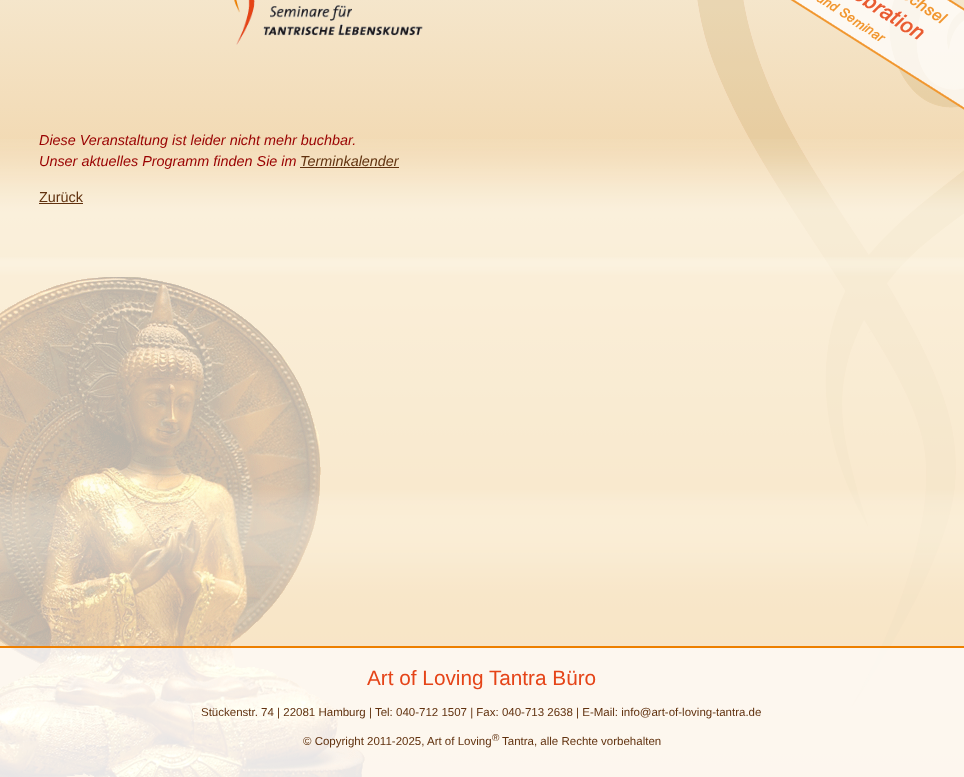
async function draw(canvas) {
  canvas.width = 964
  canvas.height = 777
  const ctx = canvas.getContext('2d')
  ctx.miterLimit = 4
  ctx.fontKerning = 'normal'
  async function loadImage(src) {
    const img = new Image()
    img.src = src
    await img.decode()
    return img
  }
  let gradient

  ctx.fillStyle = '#fff'
  ctx.fillRect(0, 0, 964, 777)
  gradient = ctx.createLinearGradient(482, -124, 482, 777)
  gradient.addColorStop(0, '#f7f0df')
  gradient.addColorStop(1, '#e7a64e')
  ctx.fillStyle = gradient
  ctx.fillRect(0, 0, 964, 777)
  ctx.drawImage(await loadImage('image0.png'), 0, 277, 365, 500)
  ctx.drawImage(await loadImage('image1.png'), 697, 0, 267, 706)
  ctx.drawImage(await loadImage('image2.png'), 234, 0, 189, 45)
  ctx.drawImage(await loadImage('image3.png'), 790, 0, 174, 110)
  ctx.drawImage(await loadImage('image4.png'), 0, 139, 964, 507)
  ctx.font = 'italic 14.4px Liberation Sans'
  ctx.fillStyle = '#900'
  ctx.fillText('Diese Veranstaltung ist leider nicht mehr buchbar.', 39, 145)
  ctx.fillText('Unser aktuelles Programm finden Sie im', 39, 166)
  ctx.fillStyle = '#61320f'
  ctx.fillText('Terminkalender', 300, 166)
  ctx.fillRect(300, 167, 99, 1)
  ctx.font = '14.4px Liberation Sans'
  ctx.fillText('Zurück', 39, 202)
  ctx.fillRect(39, 203, 44, 1)
  ctx.fillStyle = '#ffffffe6'
  ctx.fillRect(0, 648, 964, 129)
  ctx.fillStyle = '#ed7f00'
  ctx.fillRect(0, 646, 964, 2)
  ctx.font = '20.75px Liberation Sans'
  ctx.fillStyle = '#e54418'
  ctx.fillText('Art of Loving Tantra Büro', 367, 685)
  ctx.font = '11.5px Liberation Sans'
  ctx.fillStyle = '#61320f'
  ctx.fillText('Stückenstr. 74 | 22081 Hamburg | Tel: 040-712 1507 | Fax: 040-713 2638 | E-Mail: info@art-of-loving-tantra.de', 201, 716)
  ctx.fillText('© Copyright 2011-2025, Art of Loving', 303, 745)
  ctx.font = '10px Liberation Sans'
  ctx.fillText('®', 492, 741)
  ctx.font = '11.5px Liberation Sans'
  ctx.fillText('Tantra, alle Rechte vorbehalten', 502, 745)
}

draw(document.querySelector('canvas'))
